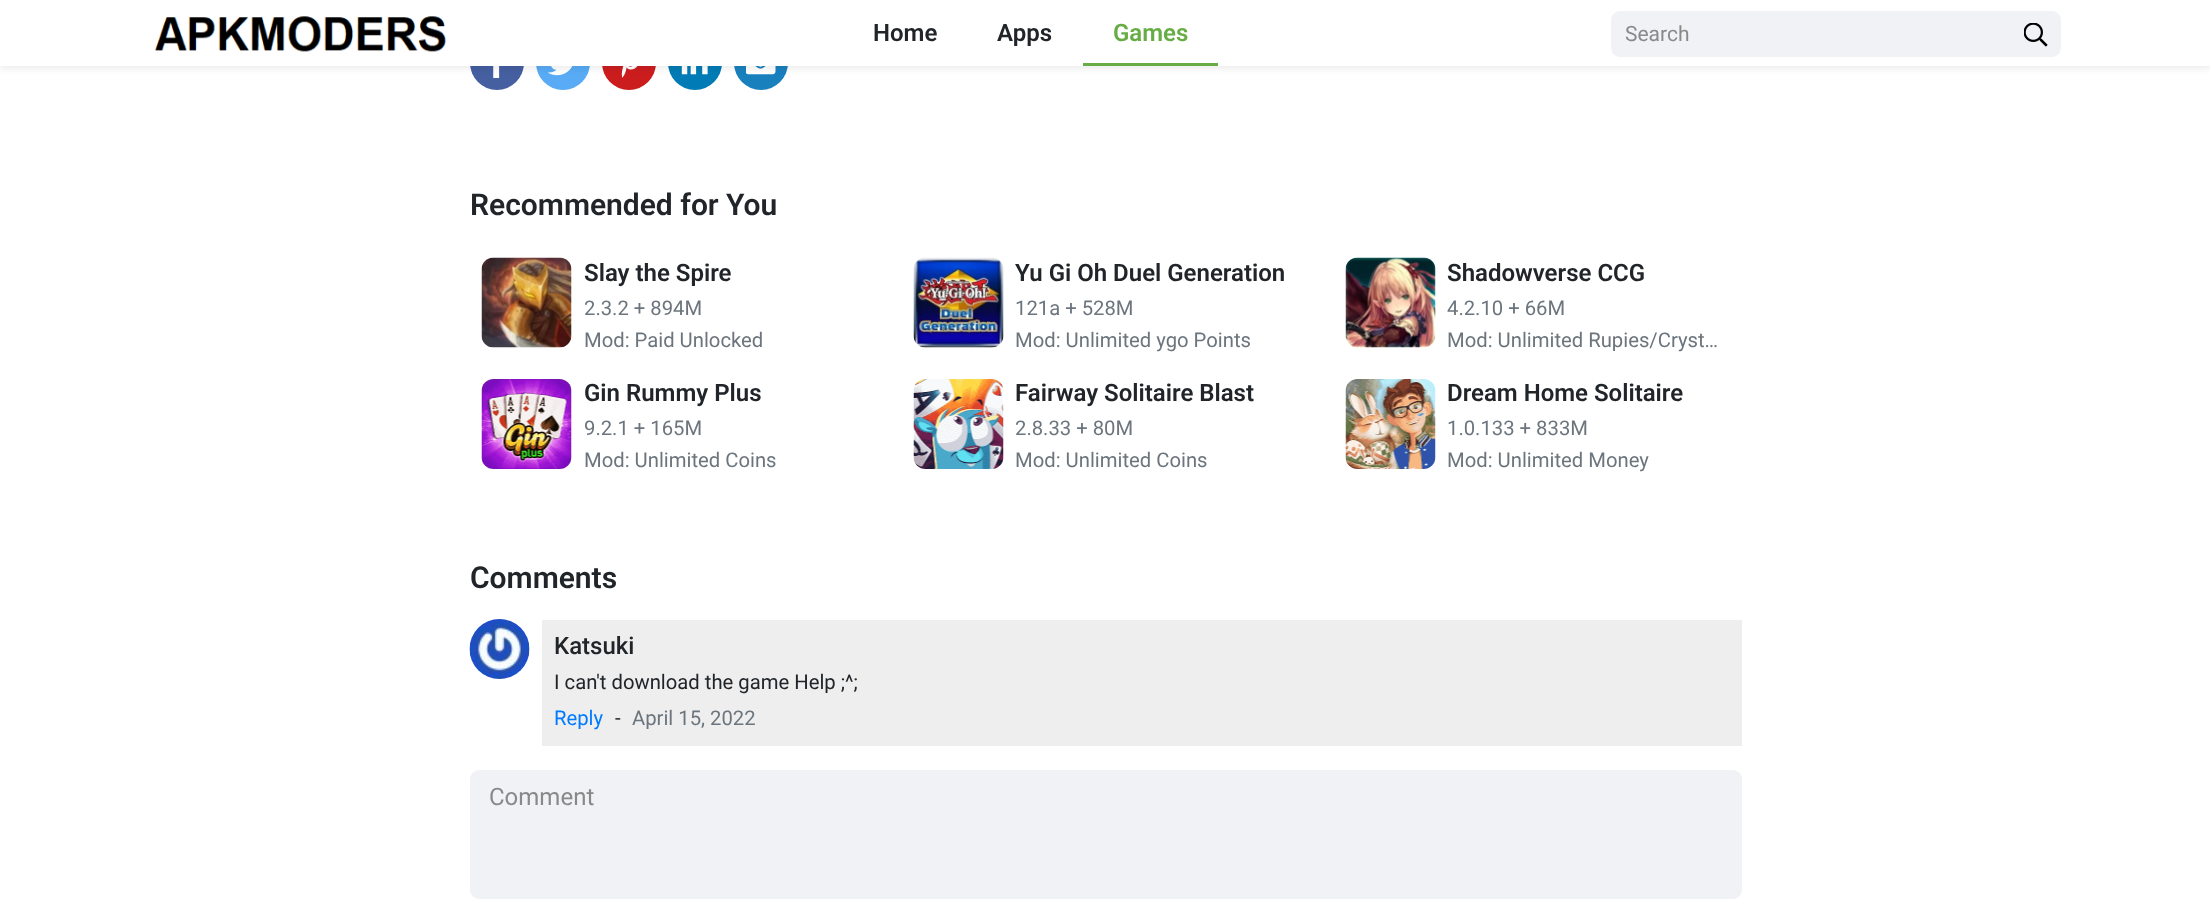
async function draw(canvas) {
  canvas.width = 2210
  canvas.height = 906
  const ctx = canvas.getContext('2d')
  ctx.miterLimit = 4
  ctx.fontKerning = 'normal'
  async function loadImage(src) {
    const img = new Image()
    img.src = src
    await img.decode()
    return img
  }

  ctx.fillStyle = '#fff'
  ctx.fillRect(0, 0, 2210, 906)
  ctx.fillStyle = '#455fa1'
  ctx.beginPath()
  ctx.arc(497, 63, 27, 0, 2 * Math.PI)
  ctx.fill()
  ctx.drawImage(await loadImage('image2.png'), 493, 66, 7, 12)
  ctx.fillStyle = '#58abf4'
  ctx.beginPath()
  ctx.arc(563, 63, 27, 0, 2 * Math.PI)
  ctx.fill()
  ctx.drawImage(await loadImage('image3.png'), 548, 66, 25, 10)
  ctx.fillStyle = '#cc1d1e'
  ctx.beginPath()
  ctx.arc(629, 63, 27, 0, 2 * Math.PI)
  ctx.fill()
  ctx.drawImage(await loadImage('image4.png'), 621, 66, 17, 12)
  ctx.fillStyle = '#007bb5'
  ctx.beginPath()
  ctx.arc(695, 63, 27, 0, 2 * Math.PI)
  ctx.fill()
  ctx.drawImage(await loadImage('image5.png'), 681, 66, 27, 9)
  ctx.fillStyle = '#1980be'
  ctx.beginPath()
  ctx.arc(761, 63, 27, 0, 2 * Math.PI)
  ctx.fill()
  ctx.drawImage(await loadImage('image6.png'), 746, 66, 30, 9)
  ctx.fillStyle = '#00000012'
  ctx.filter = 'blur(3px)'
  ctx.beginPath()
  ctx.rect(0, 3, 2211, 66)
  ctx.fill()
  ctx.filter = 'none'
  ctx.fillStyle = '#fff'
  ctx.fillRect(0, 0, 2210, 66)
  ctx.drawImage(await loadImage('image0.png'), 155, 16, 292, 36)
  ctx.font = '600 24px Roboto'
  ctx.fillStyle = '#212529'
  ctx.fillText('Home', 873, 41)
  ctx.fillText('Apps', 997, 41)
  ctx.fillStyle = '#68ac46'
  ctx.fillRect(1083, 63, 135, 3)
  ctx.fillText('Games', 1113, 41)
  ctx.fillStyle = '#f0f2f5'
  ctx.beginPath()
  ctx.roundRect(1612, 12, 399, 44, [8, 0, 0, 8])
  ctx.fill()
  ctx.strokeStyle = '#f0f2f5'
  ctx.lineWidth = 2
  ctx.stroke()
  ctx.font = '21px Roboto'
  ctx.fillStyle = '#898989'
  ctx.fillText('Search', 1625, 41)
  ctx.fillStyle = '#f0f2f5'
  ctx.beginPath()
  ctx.roundRect(2011, 12, 49, 44, [0, 8, 8, 0])
  ctx.fill()
  ctx.stroke()
  ctx.drawImage(await loadImage('image1.png'), 2024, 23, 24, 24)
  ctx.font = '600 30px Roboto'
  ctx.fillStyle = '#212529'
  ctx.fillText('Recommended for You', 470, 215)
  ctx.drawImage(await loadImage('image7.png'), 481, 257, 91, 91)
  ctx.font = '600 24px Roboto'
  ctx.fillText('Slay the Spire', 584, 281)
  ctx.font = '20.25px Roboto'
  ctx.fillStyle = '#6c757d'
  ctx.fillText('2.3.2 + 894M', 584, 315)
  ctx.fillText('Mod: Paid Unlocked', 584, 347)
  ctx.drawImage(await loadImage('image8.png'), 913, 257, 91, 91)
  ctx.font = '600 24px Roboto'
  ctx.fillStyle = '#212529'
  ctx.fillText('Yu Gi Oh Duel Generation', 1015, 281)
  ctx.font = '20.25px Roboto'
  ctx.fillStyle = '#6c757d'
  ctx.fillText('121a + 528M', 1015, 315)
  ctx.fillText('Mod: Unlimited ygo Points', 1015, 347)
  ctx.drawImage(await loadImage('image9.png'), 1345, 257, 91, 91)
  ctx.font = '600 24px Roboto'
  ctx.fillStyle = '#212529'
  ctx.fillText('Shadowverse CCG', 1447, 281)
  ctx.font = '20.25px Roboto'
  ctx.fillStyle = '#6c757d'
  ctx.fillText('4.2.10 + 66M', 1447, 315)
  ctx.fillText('Mod: Unlimited Rupies/Cryst…', 1447, 347)
  ctx.drawImage(await loadImage('image10.png'), 481, 379, 91, 90)
  ctx.font = '600 24px Roboto'
  ctx.fillStyle = '#212529'
  ctx.fillText('Gin Rummy Plus', 584, 401)
  ctx.font = '20.25px Roboto'
  ctx.fillStyle = '#6c757d'
  ctx.fillText('9.2.1 + 165M', 584, 435)
  ctx.fillText('Mod: Unlimited Coins', 584, 467)
  ctx.drawImage(await loadImage('image11.png'), 913, 379, 91, 90)
  ctx.font = '600 24px Roboto'
  ctx.fillStyle = '#212529'
  ctx.fillText('Fairway Solitaire Blast', 1015, 401)
  ctx.font = '20.25px Roboto'
  ctx.fillStyle = '#6c757d'
  ctx.fillText('2.8.33 + 80M', 1015, 435)
  ctx.fillText('Mod: Unlimited Coins', 1015, 467)
  ctx.drawImage(await loadImage('image12.png'), 1345, 379, 91, 90)
  ctx.font = '600 24px Roboto'
  ctx.fillStyle = '#212529'
  ctx.fillText('Dream Home Solitaire', 1447, 401)
  ctx.font = '20.25px Roboto'
  ctx.fillStyle = '#6c757d'
  ctx.fillText('1.0.133 + 833M', 1447, 435)
  ctx.fillText('Mod: Unlimited Money', 1447, 467)
  ctx.font = '600 30px Roboto'
  ctx.fillStyle = '#212529'
  ctx.fillText('Comments', 470, 588)
  ctx.drawImage(await loadImage('image13.png'), 469, 619, 61, 60)
  ctx.fillStyle = '#eee'
  ctx.fillRect(542, 620, 1200, 126)
  ctx.font = '500 24px Roboto'
  ctx.fillStyle = '#212529'
  ctx.fillText('Katsuki', 554, 654)
  ctx.font = '20.25px Roboto'
  ctx.fillText('I can\'t download the game Help ;^;', 554, 689)
  ctx.fillStyle = '#007bff'
  ctx.fillText('Reply', 554, 725)
  ctx.fillStyle = '#212529'
  ctx.fillText('-', 615, 725)
  ctx.fillStyle = '#6c757d'
  ctx.fillText('April 15, 2022', 632, 725)
  ctx.fillStyle = '#f0f2f5'
  ctx.beginPath()
  ctx.roundRect(471, 771, 1270, 127, 8)
  ctx.fill()
  ctx.stroke()
  ctx.font = '24px Roboto'
  ctx.fillStyle = '#898989'
  ctx.fillText('Comment', 489, 805)
}

draw(document.querySelector('canvas'))
